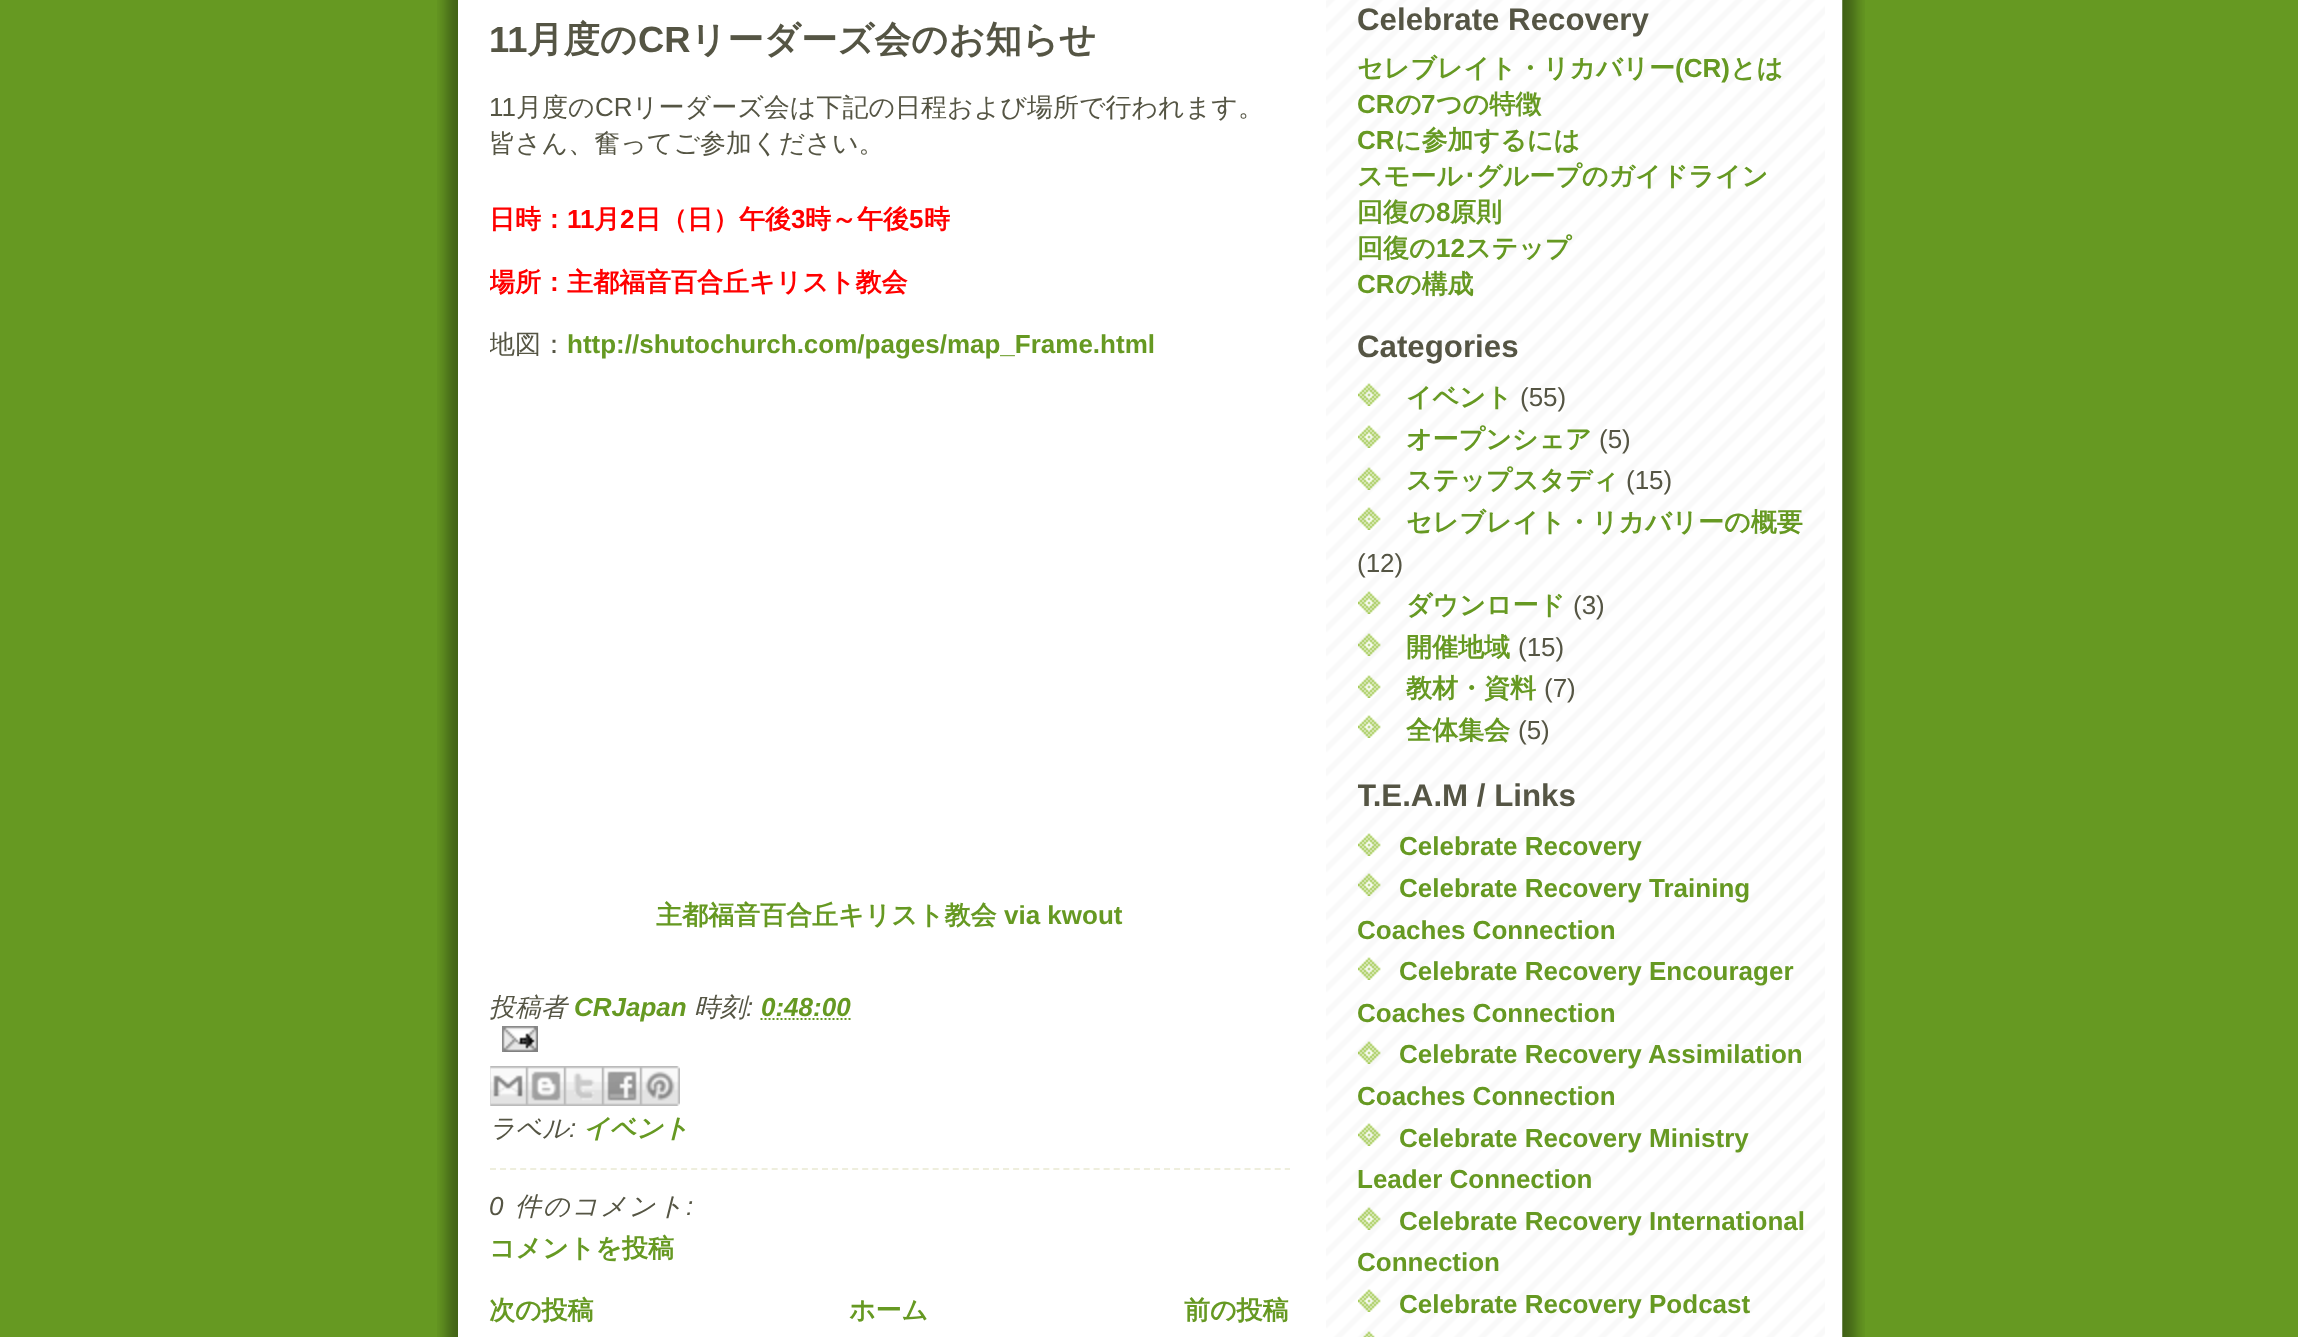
async function draw(canvas) {
  canvas.width = 2298
  canvas.height = 1337
  const ctx = canvas.getContext('2d')
  ctx.miterLimit = 4
  ctx.fontKerning = 'normal'
  async function loadImage(src) {
    const img = new Image()
    img.src = src
    await img.decode()
    return img
  }

  ctx.fillStyle = '#692'
  ctx.fillRect(0, 0, 2298, 1337)
  ctx.drawImage(await loadImage('image0.png'), 437, 0, 1428, 1337)
  ctx.fillStyle = '#fff'
  ctx.fillRect(458, 0, 1384, 1337)
  ctx.drawImage(await loadImage('image1.png'), 1326, 0, 499, 1337)
  ctx.font = 'bold 36.4px Liberation Sans'
  ctx.fillStyle = '#554'
  ctx.fillText('11', 489, 52)
  ctx.font = 'bold 36.4px WenQuanYi Zen Hei'
  ctx.fillText('月度の', 527, 52)
  ctx.font = 'bold 36.4px Liberation Sans'
  ctx.fillText('CR', 638, 52)
  ctx.font = 'bold 36.4px WenQuanYi Zen Hei'
  ctx.fillText('リーダーズ会のお知らせ', 690, 52)
  ctx.font = '26px Liberation Sans'
  ctx.fillText('11', 489, 116)
  ctx.font = '500 26px WenQuanYi Zen Hei'
  ctx.fillText('月度の', 516, 116)
  ctx.font = '26px Liberation Sans'
  ctx.fillText('CR', 595, 116)
  ctx.font = '500 26px WenQuanYi Zen Hei'
  ctx.fillText('リーダーズ会は下記の日程および場所で行われます。', 632, 116)
  ctx.fillText('皆さん、奮ってご参加ください。', 489, 152)
  ctx.font = 'bold 26px WenQuanYi Zen Hei'
  ctx.fillStyle = '#f00'
  ctx.fillText('日時：', 489, 228)
  ctx.font = 'bold 26px Liberation Sans'
  ctx.fillText('11', 567, 228)
  ctx.font = 'bold 26px WenQuanYi Zen Hei'
  ctx.fillText('月', 594, 228)
  ctx.font = 'bold 26px Liberation Sans'
  ctx.fillText('2', 620, 228)
  ctx.font = 'bold 26px WenQuanYi Zen Hei'
  ctx.fillText('日（日）午後', 635, 228)
  ctx.font = 'bold 26px Liberation Sans'
  ctx.fillText('3', 791, 228)
  ctx.font = 'bold 26px WenQuanYi Zen Hei'
  ctx.fillText('時～午後', 805, 228)
  ctx.font = 'bold 26px Liberation Sans'
  ctx.fillText('5', 909, 228)
  ctx.font = 'bold 26px WenQuanYi Zen Hei'
  ctx.fillText('時', 924, 228)
  ctx.save()
  ctx.beginPath()
  ctx.rect(490, 0, 800, 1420)
  ctx.clip()
  ctx.fillText('場所：主都福音百合丘キリスト教会', 489, 291)
  ctx.font = '500 26px WenQuanYi Zen Hei'
  ctx.fillStyle = '#554'
  ctx.fillText('地図：', 489, 353)
  ctx.restore()
  ctx.font = 'bold 26px Liberation Sans'
  ctx.fillStyle = '#692'
  ctx.fillText('http://shutochurch.com/pages/map_Frame.html', 567, 353)
  ctx.font = 'bold 26px WenQuanYi Zen Hei'
  ctx.fillText('主都福音百合丘キリスト教会', 656, 924)
  ctx.font = 'bold 26px Liberation Sans'
  ctx.fillText('via kwout', 1004, 924)
  ctx.font = 'italic 500 26px WenQuanYi Zen Hei'
  ctx.fillStyle = '#554'
  ctx.fillText('投稿者', 489, 1016)
  ctx.font = 'italic bold 26px Liberation Sans'
  ctx.fillStyle = '#692'
  ctx.fillText('CRJapan', 574, 1016)
  ctx.font = 'italic 500 26px WenQuanYi Zen Hei'
  ctx.fillStyle = '#554'
  ctx.fillText('時刻', 694, 1016)
  ctx.font = 'italic bold 26px Liberation Sans'
  ctx.fillStyle = '#692'
  ctx.fillText('0:48:00', 761, 1016)
  ctx.beginPath()
  ctx.moveTo(760.5, 1019)
  ctx.lineTo(850.5, 1019)
  ctx.strokeStyle = '#692'
  ctx.lineWidth = 2
  ctx.setLineDash([2, 2])
  ctx.stroke()
  ctx.font = 'italic 26px Liberation Sans'
  ctx.fillStyle = '#554'
  ctx.fillText(':', 746, 1016)
  ctx.drawImage(await loadImage('image2.png'), 502, 1026, 36, 26)
  ctx.drawImage(await loadImage('image3.png'), 490, 1066, 36, 40)
  ctx.drawImage(await loadImage('image4.png'), 526, 1066, 38, 40)
  ctx.drawImage(await loadImage('image5.png'), 564, 1066, 38, 40)
  ctx.drawImage(await loadImage('image6.png'), 602, 1066, 38, 40)
  ctx.drawImage(await loadImage('image7.png'), 640, 1066, 40, 40)
  ctx.font = 'italic 500 26px WenQuanYi Zen Hei'
  ctx.fillText('ラベル', 489, 1137)
  ctx.font = 'italic 26px Liberation Sans'
  ctx.fillText(':', 569, 1137)
  ctx.font = 'italic bold 26px WenQuanYi Zen Hei'
  ctx.fillStyle = '#692'
  ctx.fillText('イベント', 583, 1137)
  ctx.beginPath()
  ctx.moveTo(490, 1169)
  ctx.lineTo(1290, 1169)
  ctx.strokeStyle = '#eed'
  ctx.setLineDash([6, 4.06])
  ctx.stroke()
  ctx.letterSpacing = '2px'
  ctx.font = 'italic 26px Liberation Sans'
  ctx.fillStyle = '#554'
  ctx.fillText('0', 489, 1215)
  ctx.font = 'italic 500 26px WenQuanYi Zen Hei'
  ctx.fillText('件のコメント', 515, 1215)
  ctx.font = 'italic 26px Liberation Sans'
  ctx.fillText(':', 686, 1215)
  ctx.letterSpacing = '0px'
  ctx.font = 'bold 26px WenQuanYi Zen Hei'
  ctx.fillStyle = '#692'
  ctx.fillText('コメントを投稿', 489, 1257)
  ctx.fillText('次の投稿', 489, 1319)
  ctx.fillText('ホーム', 849, 1319)
  ctx.fillText('前の投稿', 1184, 1319)
  ctx.font = 'bold 31.25px Liberation Sans'
  ctx.fillStyle = '#554'
  ctx.fillText('Celebrate Recovery', 1357, 30)
  ctx.font = 'bold 26px WenQuanYi Zen Hei'
  ctx.fillStyle = '#692'
  ctx.fillText('セレブレイト・リカバリー', 1357, 77)
  ctx.font = 'bold 26px Liberation Sans'
  ctx.fillText('(CR)', 1675, 77)
  ctx.font = 'bold 26px WenQuanYi Zen Hei'
  ctx.fillText('とは', 1730, 77)
  ctx.font = 'bold 26px Liberation Sans'
  ctx.fillText('CR', 1357, 113)
  ctx.font = 'bold 26px WenQuanYi Zen Hei'
  ctx.fillText('の', 1395, 113)
  ctx.font = 'bold 26px Liberation Sans'
  ctx.fillText('7', 1421, 113)
  ctx.font = 'bold 26px WenQuanYi Zen Hei'
  ctx.fillText('つの特徴', 1436, 113)
  ctx.font = 'bold 26px Liberation Sans'
  ctx.fillText('CR', 1357, 149)
  ctx.font = 'bold 26px WenQuanYi Zen Hei'
  ctx.fillText('に参加するには', 1395, 149)
  ctx.fillText('スモール', 1357, 185)
  ctx.font = 'bold 26px IPAGothic'
  ctx.fillText('･', 1463, 185)
  ctx.font = 'bold 26px WenQuanYi Zen Hei'
  ctx.fillText('グループのガイドライン', 1476, 185)
  ctx.fillText('回復の', 1357, 221)
  ctx.font = 'bold 26px Liberation Sans'
  ctx.fillText('8', 1436, 221)
  ctx.font = 'bold 26px WenQuanYi Zen Hei'
  ctx.fillText('原則', 1450, 221)
  ctx.fillText('回復の', 1357, 257)
  ctx.font = 'bold 26px Liberation Sans'
  ctx.fillText('12', 1436, 257)
  ctx.font = 'bold 26px WenQuanYi Zen Hei'
  ctx.fillText('ステップ', 1465, 257)
  ctx.font = 'bold 26px Liberation Sans'
  ctx.fillText('CR', 1357, 293)
  ctx.font = 'bold 26px WenQuanYi Zen Hei'
  ctx.fillText('の構成', 1395, 293)
  ctx.font = 'bold 31.25px Liberation Sans'
  ctx.fillStyle = '#554'
  ctx.fillText('Categories', 1357, 357)
  ctx.drawImage(await loadImage('image8.png'), 1358, 383, 23, 23)
  ctx.font = 'bold 26px WenQuanYi Zen Hei'
  ctx.fillStyle = '#692'
  ctx.fillText('イベント', 1406, 406)
  ctx.font = '26px Liberation Sans'
  ctx.fillStyle = '#554'
  ctx.fillText('(55)', 1520, 406)
  ctx.drawImage(await loadImage('image9.png'), 1358, 425, 23, 23)
  ctx.font = 'bold 26px WenQuanYi Zen Hei'
  ctx.fillStyle = '#692'
  ctx.fillText('オープンシェア', 1406, 448)
  ctx.font = '26px Liberation Sans'
  ctx.fillStyle = '#554'
  ctx.fillText('(5)', 1599, 448)
  ctx.drawImage(await loadImage('image10.png'), 1358, 467, 23, 23)
  ctx.font = 'bold 26px WenQuanYi Zen Hei'
  ctx.fillStyle = '#692'
  ctx.fillText('ステップスタディ', 1406, 489)
  ctx.font = '26px Liberation Sans'
  ctx.fillStyle = '#554'
  ctx.fillText('(15)', 1626, 489)
  ctx.drawImage(await loadImage('image11.png'), 1358, 507, 23, 23)
  ctx.font = 'bold 26px WenQuanYi Zen Hei'
  ctx.fillStyle = '#692'
  ctx.fillText('セレブレイト・リカバリーの概要', 1406, 531)
  ctx.font = '26px Liberation Sans'
  ctx.fillStyle = '#554'
  ctx.fillText('(12)', 1357, 572)
  ctx.drawImage(await loadImage('image12.png'), 1358, 591, 23, 23)
  ctx.font = 'bold 26px WenQuanYi Zen Hei'
  ctx.fillStyle = '#692'
  ctx.fillText('ダウンロード', 1406, 614)
  ctx.font = '26px Liberation Sans'
  ctx.fillStyle = '#554'
  ctx.fillText('(3)', 1573, 614)
  ctx.drawImage(await loadImage('image13.png'), 1358, 633, 23, 23)
  ctx.font = 'bold 26px WenQuanYi Zen Hei'
  ctx.fillStyle = '#692'
  ctx.fillText('開催地域', 1406, 656)
  ctx.font = '26px Liberation Sans'
  ctx.fillStyle = '#554'
  ctx.fillText('(15)', 1518, 656)
  ctx.drawImage(await loadImage('image11.png'), 1358, 675, 23, 23)
  ctx.font = 'bold 26px WenQuanYi Zen Hei'
  ctx.fillStyle = '#692'
  ctx.fillText('教材・資料', 1406, 697)
  ctx.font = '26px Liberation Sans'
  ctx.fillStyle = '#554'
  ctx.fillText('(7)', 1544, 697)
  ctx.drawImage(await loadImage('image14.png'), 1358, 715, 23, 23)
  ctx.font = 'bold 26px WenQuanYi Zen Hei'
  ctx.fillStyle = '#692'
  ctx.fillText('全体集会', 1406, 739)
  ctx.font = '26px Liberation Sans'
  ctx.fillStyle = '#554'
  ctx.fillText('(5)', 1518, 739)
  ctx.save()
  ctx.beginPath()
  ctx.rect(1358, 0, 452, 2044)
  ctx.clip()
  ctx.font = 'bold 31.25px Liberation Sans'
  ctx.fillText('T.E.A.M / Links', 1357, 806)
  ctx.restore()
  ctx.drawImage(await loadImage('image9.png'), 1358, 833, 23, 23)
  ctx.font = 'bold 26px Liberation Sans'
  ctx.fillStyle = '#692'
  ctx.fillText('Celebrate Recovery', 1399, 855)
  ctx.drawImage(await loadImage('image13.png'), 1358, 873, 23, 23)
  ctx.fillText('Celebrate Recovery Training', 1399, 897)
  ctx.fillText('Coaches Connection', 1357, 939)
  ctx.drawImage(await loadImage('image15.png'), 1358, 957, 23, 23)
  ctx.fillText('Celebrate Recovery Encourager', 1399, 980)
  ctx.fillText('Coaches Connection', 1357, 1022)
  ctx.drawImage(await loadImage('image13.png'), 1358, 1041, 23, 23)
  ctx.fillText('Celebrate Recovery Assimilation', 1399, 1063)
  ctx.fillText('Coaches Connection', 1357, 1105)
  ctx.drawImage(await loadImage('image14.png'), 1358, 1123, 23, 23)
  ctx.fillText('Celebrate Recovery Ministry', 1399, 1147)
  ctx.fillText('Leader Connection', 1357, 1188)
  ctx.drawImage(await loadImage('image16.png'), 1358, 1207, 23, 23)
  ctx.fillText('Celebrate Recovery International', 1399, 1230)
  ctx.fillText('Connection', 1357, 1271)
  ctx.drawImage(await loadImage('image9.png'), 1358, 1289, 23, 23)
  ctx.fillText('Celebrate Recovery Podcast', 1399, 1313)
  ctx.drawImage(await loadImage('image17.png'), 1363, 1331, 12, 6)
}

draw(document.querySelector('canvas'))
